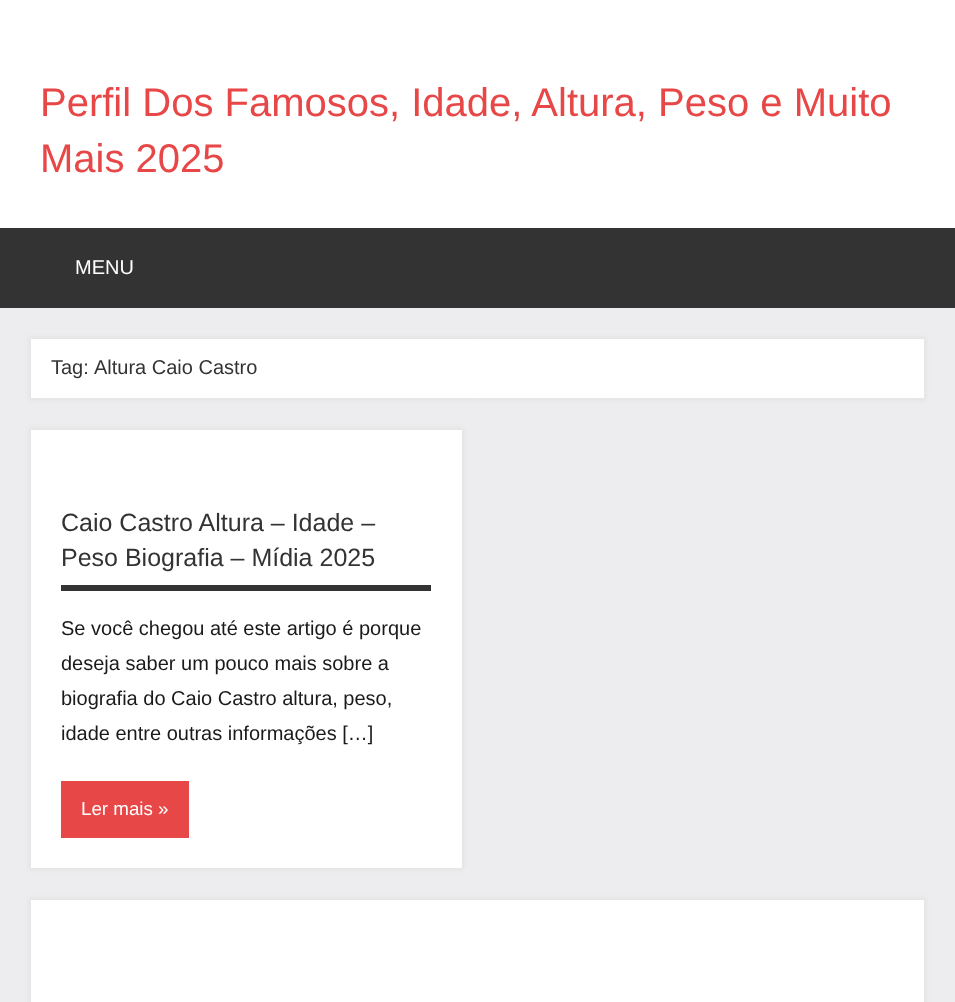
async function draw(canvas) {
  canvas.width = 955
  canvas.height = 1002
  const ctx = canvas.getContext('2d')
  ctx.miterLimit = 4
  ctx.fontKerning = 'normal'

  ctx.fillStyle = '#ededef'
  ctx.fillRect(0, 0, 955, 1002)
  ctx.fillStyle = '#fff'
  ctx.fillRect(0, 0, 955, 228)
  ctx.font = '40px Liberation Sans'
  ctx.fillStyle = '#e84747'
  ctx.fillText('Perfil Dos Famosos, Idade, Altura, Peso e Muito', 40, 116)
  ctx.fillText('Mais 2025', 40, 172)
  ctx.fillStyle = '#333'
  ctx.fillRect(0, 228, 955, 80)
  ctx.font = '20px Liberation Sans'
  ctx.fillStyle = '#fff'
  ctx.fillText('MENU', 75, 274)
  ctx.fillStyle = '#ddd'
  ctx.filter = 'blur(2.5px)'
  ctx.beginPath()
  ctx.rect(30, 338, 895, 61)
  ctx.fill()
  ctx.filter = 'none'
  ctx.fillStyle = '#fff'
  ctx.beginPath()
  ctx.rect(30.5, 338.5, 894, 60)
  ctx.fill()
  ctx.strokeStyle = '#e6e6e6'
  ctx.stroke()
  ctx.fillStyle = '#333'
  ctx.fillText('Tag:', 51, 374)
  ctx.fillText('Altura Caio Castro', 94, 374)
  ctx.fillStyle = '#ddd'
  ctx.filter = 'blur(2.5px)'
  ctx.beginPath()
  ctx.rect(30, 429, 433, 440)
  ctx.fill()
  ctx.filter = 'none'
  ctx.fillStyle = '#fff'
  ctx.beginPath()
  ctx.rect(30.5, 429.5, 432, 439)
  ctx.fill()
  ctx.stroke()
  ctx.fillStyle = '#333'
  ctx.fillRect(61, 585, 370, 6)
  ctx.font = '25px Liberation Sans'
  ctx.fillText('Caio Castro Altura – Idade –', 61, 531)
  ctx.fillText('Peso Biografia – Mídia 2025', 61, 566)
  ctx.font = '20px Liberation Sans'
  ctx.fillStyle = '#1a1a1a'
  ctx.fillText('Se você chegou até este artigo é porque', 61, 635)
  ctx.fillText('deseja saber um pouco mais sobre a', 61, 670)
  ctx.fillText('biografia do Caio Castro altura, peso,', 61, 705)
  ctx.fillText('idade entre outras informações […]', 61, 740)
  ctx.fillStyle = '#e84747'
  ctx.fillRect(61, 781, 128, 57)
  ctx.font = '18.75px Liberation Sans'
  ctx.fillStyle = '#fff'
  ctx.fillText('Ler mais »', 81, 815)
  ctx.fillStyle = '#ddd'
  ctx.filter = 'blur(2.5px)'
  ctx.beginPath()
  ctx.rect(30, 899, 895, 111)
  ctx.fill()
  ctx.filter = 'none'
  ctx.fillStyle = '#fff'
  ctx.beginPath()
  ctx.rect(30.5, 899.5, 894, 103)
  ctx.fill()
  ctx.stroke()
}

draw(document.querySelector('canvas'))
